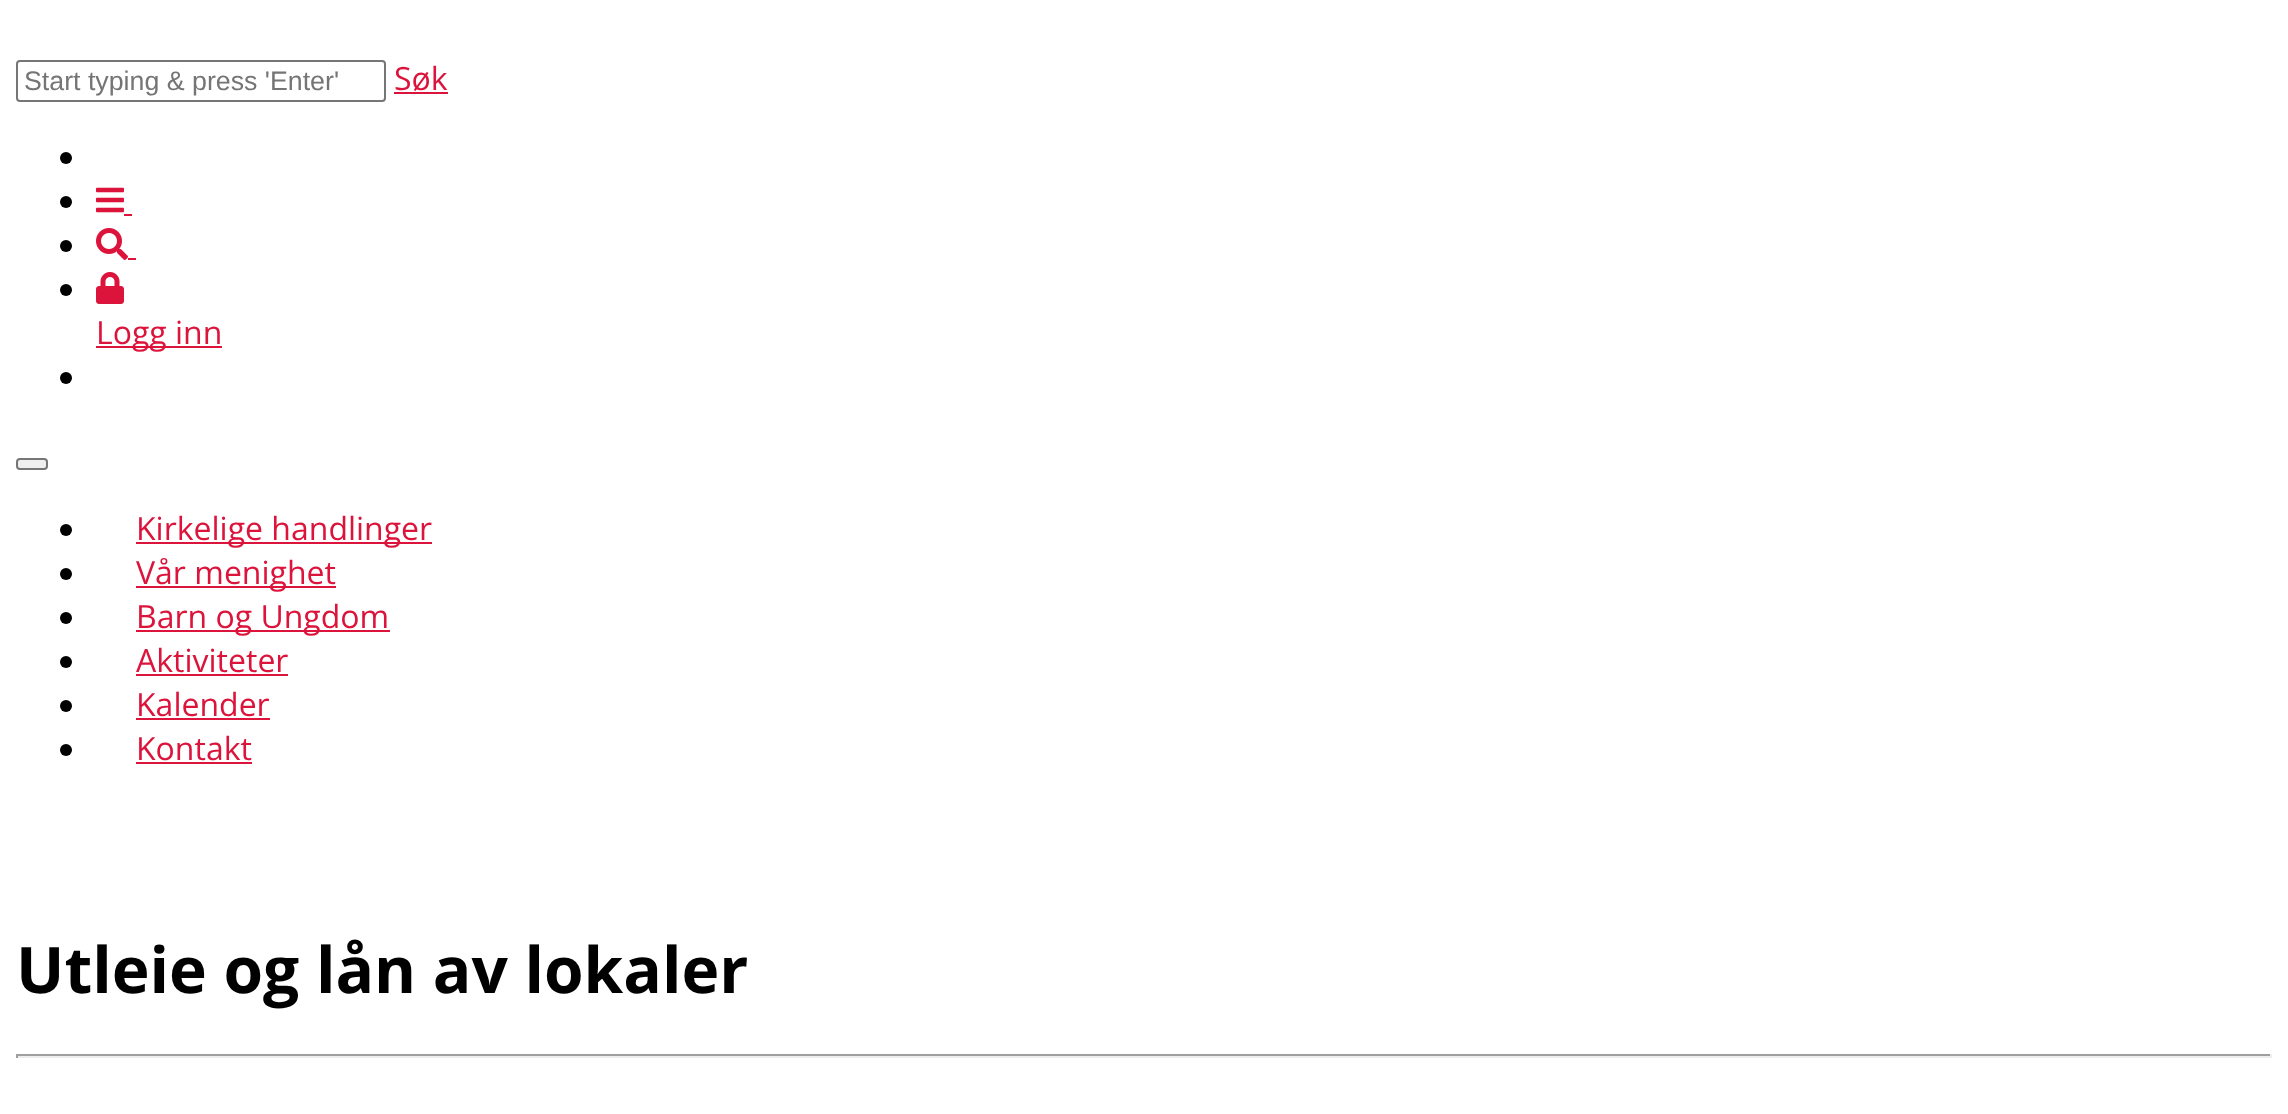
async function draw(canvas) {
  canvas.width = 2288
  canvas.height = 1114
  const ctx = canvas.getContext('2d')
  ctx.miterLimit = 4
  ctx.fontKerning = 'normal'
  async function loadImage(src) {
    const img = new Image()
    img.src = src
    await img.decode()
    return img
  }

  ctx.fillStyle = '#fff'
  ctx.fillRect(0, 0, 2288, 1114)
  ctx.beginPath()
  ctx.roundRect(17, 61, 368, 40, 3)
  ctx.strokeStyle = '#767676'
  ctx.lineWidth = 2
  ctx.stroke()
  ctx.font = '26.75px Liberation Sans'
  ctx.fillStyle = '#757575'
  ctx.fillText('Start typing & press \'Enter\'', 24, 90)
  ctx.font = '32px Open Sans'
  ctx.fillStyle = '#dc143c'
  ctx.fillText('Søk', 394, 90)
  ctx.fillRect(394, 92, 54, 2)
  ctx.fillStyle = '#000'
  ctx.beginPath()
  ctx.arc(66, 158, 6, 0, 2 * Math.PI)
  ctx.fill()
  ctx.beginPath()
  ctx.arc(66, 202, 6, 0, 2 * Math.PI)
  ctx.fill()
  ctx.drawImage(await loadImage('image0.png'), 96, 187, 28, 26)
  ctx.fillStyle = '#dc143c'
  ctx.fillRect(124, 214, 8, 2)
  ctx.fillStyle = '#000'
  ctx.beginPath()
  ctx.arc(66, 246, 6, 0, 2 * Math.PI)
  ctx.fill()
  ctx.drawImage(await loadImage('image1.png'), 96, 228, 32, 32)
  ctx.fillStyle = '#dc143c'
  ctx.fillRect(128, 258, 8, 2)
  ctx.fillStyle = '#000'
  ctx.beginPath()
  ctx.arc(66, 290, 6, 0, 2 * Math.PI)
  ctx.fill()
  ctx.drawImage(await loadImage('image2.png'), 96, 272, 28, 32)
  ctx.fillStyle = '#dc143c'
  ctx.fillRect(96, 346, 126, 2)
  ctx.fillText('Logg inn', 96, 344)
  ctx.fillStyle = '#000'
  ctx.beginPath()
  ctx.arc(66, 378, 6, 0, 2 * Math.PI)
  ctx.fill()
  ctx.fillStyle = '#efefef'
  ctx.beginPath()
  ctx.roundRect(17, 459, 30, 10, 3)
  ctx.fill()
  ctx.stroke()
  ctx.fillStyle = '#000'
  ctx.beginPath()
  ctx.arc(66, 530, 6, 0, 2 * Math.PI)
  ctx.fill()
  ctx.fillStyle = '#dc143c'
  ctx.fillRect(136, 542, 296, 2)
  ctx.fillText('Kirkelige handlinger', 136, 540)
  ctx.fillStyle = '#000'
  ctx.beginPath()
  ctx.arc(66, 574, 6, 0, 2 * Math.PI)
  ctx.fill()
  ctx.fillStyle = '#dc143c'
  ctx.fillRect(136, 586, 200, 2)
  ctx.fillText('Vår menighet', 136, 584)
  ctx.fillStyle = '#000'
  ctx.beginPath()
  ctx.arc(66, 618, 6, 0, 2 * Math.PI)
  ctx.fill()
  ctx.fillStyle = '#dc143c'
  ctx.fillRect(136, 630, 254, 2)
  ctx.fillText('Barn og Ungdom', 136, 628)
  ctx.fillStyle = '#000'
  ctx.beginPath()
  ctx.arc(66, 662, 6, 0, 2 * Math.PI)
  ctx.fill()
  ctx.fillStyle = '#dc143c'
  ctx.fillText('Aktiviteter', 136, 672)
  ctx.fillRect(136, 674, 152, 2)
  ctx.fillStyle = '#000'
  ctx.beginPath()
  ctx.arc(66, 706, 6, 0, 2 * Math.PI)
  ctx.fill()
  ctx.fillStyle = '#dc143c'
  ctx.fillText('Kalender', 136, 716)
  ctx.fillRect(136, 718, 134, 2)
  ctx.fillStyle = '#000'
  ctx.beginPath()
  ctx.arc(66, 750, 6, 0, 2 * Math.PI)
  ctx.fill()
  ctx.fillStyle = '#dc143c'
  ctx.fillText('Kontakt', 136, 760)
  ctx.fillRect(136, 762, 116, 2)
  ctx.font = 'bold 64px Open Sans'
  ctx.fillStyle = '#000'
  ctx.fillText('Utleie og lån av lokaler', 16, 993)
  ctx.fillStyle = '#9f9f9f'
  ctx.fillRect(16, 1054, 2256, 2)
  ctx.fillStyle = '#eee'
  ctx.fillRect(2270, 1054, 2, 4)
  ctx.fillRect(16, 1056, 2256, 2)
  ctx.fillStyle = '#9f9f9f'
  ctx.fillRect(16, 1054, 2, 4)
}

draw(document.querySelector('canvas'))
